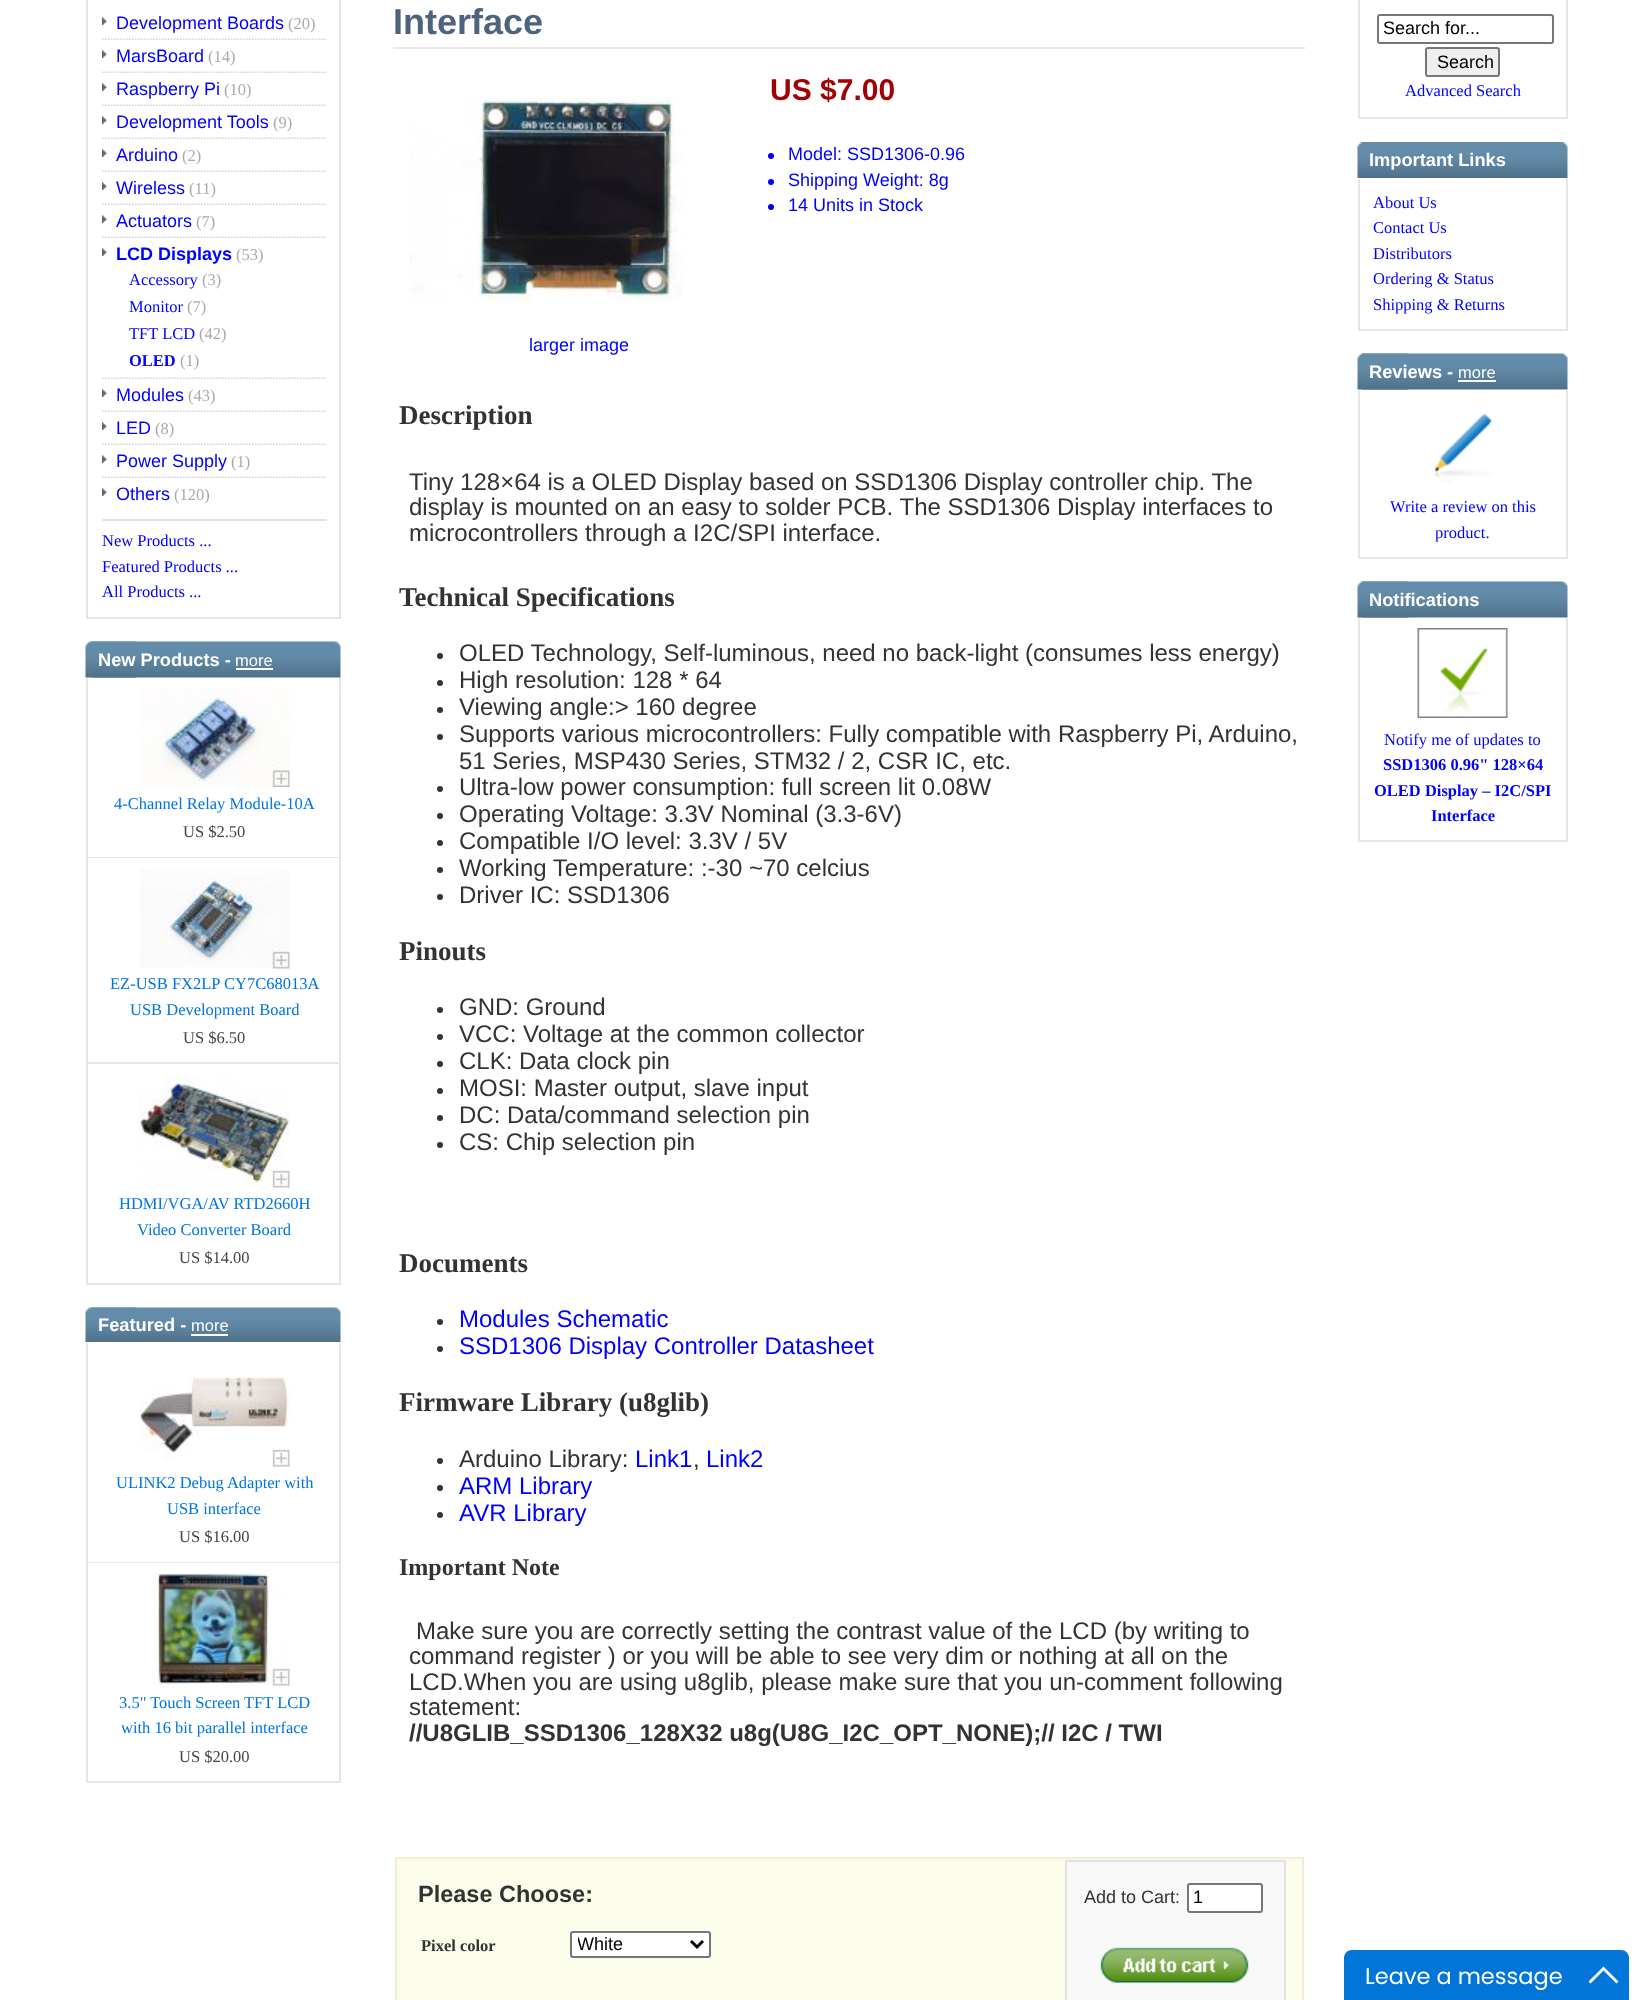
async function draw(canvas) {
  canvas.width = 1652
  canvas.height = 2000
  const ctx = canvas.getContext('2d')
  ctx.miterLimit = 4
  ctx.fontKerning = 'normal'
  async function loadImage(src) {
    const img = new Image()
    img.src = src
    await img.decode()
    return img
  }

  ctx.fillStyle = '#fff'
  ctx.fillRect(0, 0, 1652, 2000)
  ctx.fillStyle = '#e6e6e6'
  ctx.fillRect(339, 0, 2, 618)
  ctx.fillRect(86, 617, 255, 2)
  ctx.fillRect(86, 0, 2, 618)
  ctx.drawImage(await loadImage('image0.png'), 102, 17, 5, 8)
  ctx.font = '18px Liberation Sans'
  ctx.fillStyle = '#00f'
  ctx.fillText('Development Boards', 116, 29)
  ctx.font = '16.5px Liberation Serif'
  ctx.fillStyle = '#aaa'
  ctx.fillText('(20)', 288, 29)
  ctx.drawImage(await loadImage('image1.png'), 102, 38, 225, 2)
  ctx.drawImage(await loadImage('image0.png'), 102, 50, 5, 8)
  ctx.font = '18px Liberation Sans'
  ctx.fillStyle = '#00f'
  ctx.fillText('MarsBoard', 116, 62)
  ctx.font = '16.5px Liberation Serif'
  ctx.fillStyle = '#aaa'
  ctx.fillText('(14)', 208, 62)
  ctx.drawImage(await loadImage('image1.png'), 102, 71, 225, 2)
  ctx.drawImage(await loadImage('image0.png'), 102, 83, 5, 8)
  ctx.font = '18px Liberation Sans'
  ctx.fillStyle = '#00f'
  ctx.fillText('Raspberry Pi', 116, 95)
  ctx.font = '16.5px Liberation Serif'
  ctx.fillStyle = '#aaa'
  ctx.fillText('(10)', 224, 95)
  ctx.drawImage(await loadImage('image1.png'), 102, 104, 225, 2)
  ctx.drawImage(await loadImage('image0.png'), 102, 116, 5, 8)
  ctx.font = '18px Liberation Sans'
  ctx.fillStyle = '#00f'
  ctx.fillText('Development Tools', 116, 128)
  ctx.font = '16.5px Liberation Serif'
  ctx.fillStyle = '#aaa'
  ctx.fillText('(9)', 273, 128)
  ctx.drawImage(await loadImage('image1.png'), 102, 137, 225, 2)
  ctx.drawImage(await loadImage('image0.png'), 102, 149, 5, 8)
  ctx.font = '18px Liberation Sans'
  ctx.fillStyle = '#00f'
  ctx.fillText('Arduino', 116, 161)
  ctx.font = '16.5px Liberation Serif'
  ctx.fillStyle = '#aaa'
  ctx.fillText('(2)', 182, 161)
  ctx.drawImage(await loadImage('image1.png'), 102, 170, 225, 2)
  ctx.drawImage(await loadImage('image0.png'), 102, 182, 5, 8)
  ctx.font = '18px Liberation Sans'
  ctx.fillStyle = '#00f'
  ctx.fillText('Wireless', 116, 194)
  ctx.font = '16.5px Liberation Serif'
  ctx.fillStyle = '#aaa'
  ctx.fillText('(11)', 189, 194)
  ctx.drawImage(await loadImage('image1.png'), 102, 203, 225, 2)
  ctx.drawImage(await loadImage('image0.png'), 102, 215, 5, 8)
  ctx.font = '18px Liberation Sans'
  ctx.fillStyle = '#00f'
  ctx.fillText('Actuators', 116, 227)
  ctx.font = '16.5px Liberation Serif'
  ctx.fillStyle = '#aaa'
  ctx.fillText('(7)', 196, 227)
  ctx.drawImage(await loadImage('image1.png'), 102, 236, 225, 2)
  ctx.drawImage(await loadImage('image0.png'), 102, 248, 5, 8)
  ctx.font = 'bold 18px Liberation Sans'
  ctx.fillStyle = '#00f'
  ctx.fillText('LCD Displays', 116, 260)
  ctx.font = '16.5px Liberation Serif'
  ctx.fillStyle = '#aaa'
  ctx.fillText('(53)', 236, 260)
  ctx.fillStyle = '#00f'
  ctx.fillText('Accessory', 129, 285)
  ctx.fillStyle = '#aaa'
  ctx.fillText('(3)', 202, 285)
  ctx.fillStyle = '#00f'
  ctx.fillText('Monitor', 129, 312)
  ctx.fillStyle = '#aaa'
  ctx.fillText('(7)', 187, 312)
  ctx.fillStyle = '#00f'
  ctx.fillText('TFT LCD', 129, 339)
  ctx.fillStyle = '#aaa'
  ctx.fillText('(42)', 199, 339)
  ctx.font = 'bold 16.5px Liberation Serif'
  ctx.fillStyle = '#00f'
  ctx.fillText('OLED', 129, 366)
  ctx.font = '16.5px Liberation Serif'
  ctx.fillStyle = '#aaa'
  ctx.fillText('(1)', 180, 366)
  ctx.drawImage(await loadImage('image1.png'), 102, 377, 225, 2)
  ctx.drawImage(await loadImage('image0.png'), 102, 389, 5, 8)
  ctx.font = '18px Liberation Sans'
  ctx.fillStyle = '#00f'
  ctx.fillText('Modules', 116, 401)
  ctx.font = '16.5px Liberation Serif'
  ctx.fillStyle = '#aaa'
  ctx.fillText('(43)', 188, 401)
  ctx.drawImage(await loadImage('image1.png'), 102, 410, 225, 2)
  ctx.drawImage(await loadImage('image0.png'), 102, 422, 5, 8)
  ctx.font = '18px Liberation Sans'
  ctx.fillStyle = '#00f'
  ctx.fillText('LED', 116, 434)
  ctx.font = '16.5px Liberation Serif'
  ctx.fillStyle = '#aaa'
  ctx.fillText('(8)', 155, 434)
  ctx.drawImage(await loadImage('image1.png'), 102, 443, 225, 2)
  ctx.drawImage(await loadImage('image0.png'), 102, 455, 5, 8)
  ctx.font = '18px Liberation Sans'
  ctx.fillStyle = '#00f'
  ctx.fillText('Power Supply', 116, 467)
  ctx.font = '16.5px Liberation Serif'
  ctx.fillStyle = '#aaa'
  ctx.fillText('(1)', 231, 467)
  ctx.drawImage(await loadImage('image1.png'), 102, 476, 225, 2)
  ctx.drawImage(await loadImage('image0.png'), 102, 488, 5, 8)
  ctx.font = '18px Liberation Sans'
  ctx.fillStyle = '#00f'
  ctx.fillText('Others', 116, 500)
  ctx.font = '16.5px Liberation Serif'
  ctx.fillStyle = '#aaa'
  ctx.fillText('(120)', 174, 500)
  ctx.fillStyle = '#e4e4e4'
  ctx.fillRect(102, 519, 225, 2)
  ctx.fillStyle = '#00f'
  ctx.fillText('New Products ...', 102, 546)
  ctx.fillText('Featured Products ...', 102, 572)
  ctx.fillText('All Products ...', 102, 597)
  ctx.drawImage(await loadImage('image2.png'), 85, 641, 52, 37)
  ctx.drawImage(await loadImage('image3.png'), 91, 641, 250, 37)
  ctx.font = 'bold 18.25px Liberation Sans'
  ctx.fillStyle = '#fff'
  ctx.fillText('New Products -', 98, 666)
  ctx.font = '16.5px Liberation Sans'
  ctx.fillText('more', 235, 666)
  ctx.fillRect(236, 668, 37, 2)
  ctx.fillStyle = '#e6e6e6'
  ctx.fillRect(339, 678, 2, 606)
  ctx.fillRect(86, 857, 255, 1)
  ctx.fillRect(86, 678, 2, 180)
  ctx.drawImage(await loadImage('image4.png'), 140, 688, 150, 99)
  ctx.font = '16.5px Liberation Serif'
  ctx.fillStyle = '#0075e2'
  ctx.fillText('4-Channel Relay Module-10A', 114, 809)
  ctx.fillStyle = '#454545'
  ctx.fillText('US $2.50', 183, 837)
  ctx.fillStyle = '#e6e6e6'
  ctx.fillRect(86, 1062, 255, 2)
  ctx.fillRect(86, 858, 2, 206)
  ctx.drawImage(await loadImage('image5.png'), 140, 869, 150, 100)
  ctx.fillStyle = '#0075e2'
  ctx.fillText('EZ-USB FX2LP CY7C68013A', 110, 989)
  ctx.fillText('USB Development Board', 130, 1015)
  ctx.fillStyle = '#454545'
  ctx.fillText('US $6.50', 183, 1043)
  ctx.fillStyle = '#e6e6e6'
  ctx.fillRect(86, 1283, 255, 2)
  ctx.fillRect(86, 1064, 2, 220)
  ctx.drawImage(await loadImage('image6.png'), 139, 1075, 151, 113)
  ctx.fillStyle = '#0075e2'
  ctx.fillText('HDMI/VGA/AV RTD2660H', 119, 1209)
  ctx.fillText('Video Converter Board', 137, 1235)
  ctx.fillStyle = '#454545'
  ctx.fillText('US $14.00', 179, 1263)
  ctx.drawImage(await loadImage('image7.png'), 85, 1307, 52, 35)
  ctx.drawImage(await loadImage('image8.png'), 91, 1307, 250, 35)
  ctx.font = 'bold 18.25px Liberation Sans'
  ctx.fillStyle = '#fff'
  ctx.fillText('Featured -', 98, 1331)
  ctx.font = '16.5px Liberation Sans'
  ctx.fillText('more', 191, 1331)
  ctx.fillRect(191, 1334, 37, 2)
  ctx.fillStyle = '#e6e6e6'
  ctx.fillRect(339, 1343, 2, 439)
  ctx.fillRect(86, 1562, 255, 1)
  ctx.fillRect(86, 1343, 2, 220)
  ctx.drawImage(await loadImage('image9.png'), 139, 1377, 151, 90)
  ctx.font = '16.5px Liberation Serif'
  ctx.fillStyle = '#0075e2'
  ctx.fillText('ULINK2 Debug Adapter with', 116, 1488)
  ctx.fillText('USB interface', 167, 1514)
  ctx.fillStyle = '#454545'
  ctx.fillText('US $16.00', 179, 1542)
  ctx.fillStyle = '#e6e6e6'
  ctx.fillRect(86, 1781, 255, 2)
  ctx.fillRect(86, 1563, 2, 219)
  ctx.drawImage(await loadImage('image10.png'), 151, 1573, 139, 113)
  ctx.fillStyle = '#0075e2'
  ctx.fillText('3.5" Touch Screen TFT LCD', 119, 1708)
  ctx.fillText('with 16 bit parallel interface', 121, 1733)
  ctx.fillStyle = '#454545'
  ctx.fillText('US $20.00', 179, 1762)
  ctx.fillStyle = '#e6e6e6'
  ctx.fillRect(393, 47, 912, 2)
  ctx.font = 'bold 36px Liberation Sans'
  ctx.fillStyle = '#4e637e'
  ctx.fillText('Interface', 393, 34)
  ctx.font = 'bold 30px Liberation Sans'
  ctx.fillStyle = '#a30101'
  ctx.fillText('US $7.00', 770, 100)
  ctx.fillStyle = '#00f'
  ctx.beginPath()
  ctx.arc(771, 156, 3, 0, 2 * Math.PI)
  ctx.fill()
  ctx.font = '18px Liberation Sans'
  ctx.fillText('Model: SSD1306-0.96', 788, 160)
  ctx.beginPath()
  ctx.arc(771, 182, 3, 0, 2 * Math.PI)
  ctx.fill()
  ctx.fillText('Shipping Weight: 8g', 788, 186)
  ctx.beginPath()
  ctx.arc(771, 207, 3, 0, 2 * Math.PI)
  ctx.fill()
  ctx.fillText('14 Units in Stock', 788, 211)
  ctx.drawImage(await loadImage('image11.png'), 409, 97, 274, 208)
  ctx.fillText('larger image', 529, 351)
  ctx.font = 'bold 27px Liberation Serif'
  ctx.fillStyle = '#333'
  ctx.fillText('Description', 399, 424)
  ctx.font = '24px Liberation Sans'
  ctx.fillText('Tiny 128×64 is a OLED Display based on SSD1306 Display controller chip. The', 409, 490)
  ctx.fillText('display is mounted on an easy to solder PCB. The SSD1306 Display interfaces to', 409, 515)
  ctx.fillText('microcontrollers through a I2C/SPI interface.', 409, 541)
  ctx.font = 'bold 27px Liberation Serif'
  ctx.fillText('Technical Specifications', 399, 606)
  ctx.beginPath()
  ctx.arc(440, 656, 3, 0, 2 * Math.PI)
  ctx.fill()
  ctx.font = '24px Liberation Sans'
  ctx.fillText('OLED Technology, Self-luminous, need no back-light (consumes less energy)', 459, 661)
  ctx.beginPath()
  ctx.arc(440, 683, 3, 0, 2 * Math.PI)
  ctx.fill()
  ctx.fillText('High resolution: 128 * 64', 459, 688)
  ctx.beginPath()
  ctx.arc(440, 710, 3, 0, 2 * Math.PI)
  ctx.fill()
  ctx.fillText('Viewing angle:> 160 degree', 459, 715)
  ctx.beginPath()
  ctx.arc(440, 737, 3, 0, 2 * Math.PI)
  ctx.fill()
  ctx.fillText('Supports various microcontrollers: Fully compatible with Raspberry Pi, Arduino,', 459, 742)
  ctx.fillText('51 Series, MSP430 Series, STM32 / 2, CSR IC, etc.', 459, 769)
  ctx.beginPath()
  ctx.arc(440, 789, 3, 0, 2 * Math.PI)
  ctx.fill()
  ctx.fillText('Ultra-low power consumption: full screen lit 0.08W', 459, 795)
  ctx.beginPath()
  ctx.arc(440, 816, 3, 0, 2 * Math.PI)
  ctx.fill()
  ctx.fillText('Operating Voltage: 3.3V Nominal (3.3-6V)', 459, 822)
  ctx.beginPath()
  ctx.arc(440, 843, 3, 0, 2 * Math.PI)
  ctx.fill()
  ctx.fillText('Compatible I/O level: 3.3V / 5V', 459, 849)
  ctx.beginPath()
  ctx.arc(440, 870, 3, 0, 2 * Math.PI)
  ctx.fill()
  ctx.fillText('Working Temperature: :-30 ~70 celcius', 459, 876)
  ctx.beginPath()
  ctx.arc(440, 897, 3, 0, 2 * Math.PI)
  ctx.fill()
  ctx.fillText('Driver IC: SSD1306', 459, 903)
  ctx.font = 'bold 27px Liberation Serif'
  ctx.fillText('Pinouts', 399, 960)
  ctx.beginPath()
  ctx.arc(440, 1010, 3, 0, 2 * Math.PI)
  ctx.fill()
  ctx.font = '24px Liberation Sans'
  ctx.fillText('GND: Ground', 459, 1015)
  ctx.beginPath()
  ctx.arc(440, 1037, 3, 0, 2 * Math.PI)
  ctx.fill()
  ctx.fillText('VCC: Voltage at the common collector', 459, 1042)
  ctx.beginPath()
  ctx.arc(440, 1064, 3, 0, 2 * Math.PI)
  ctx.fill()
  ctx.fillText('CLK: Data clock pin', 459, 1069)
  ctx.beginPath()
  ctx.arc(440, 1091, 3, 0, 2 * Math.PI)
  ctx.fill()
  ctx.fillText('MOSI: Master output, slave input', 459, 1096)
  ctx.beginPath()
  ctx.arc(440, 1118, 3, 0, 2 * Math.PI)
  ctx.fill()
  ctx.fillText('DC: Data/command selection pin', 459, 1123)
  ctx.beginPath()
  ctx.arc(440, 1145, 3, 0, 2 * Math.PI)
  ctx.fill()
  ctx.fillText('CS: Chip selection pin', 459, 1150)
  ctx.font = 'bold 27px Liberation Serif'
  ctx.fillText('Documents', 399, 1272)
  ctx.beginPath()
  ctx.arc(440, 1322, 3, 0, 2 * Math.PI)
  ctx.fill()
  ctx.font = '24px Liberation Sans'
  ctx.fillStyle = '#00f'
  ctx.fillText('Modules Schematic', 459, 1327)
  ctx.fillStyle = '#333'
  ctx.beginPath()
  ctx.arc(440, 1349, 3, 0, 2 * Math.PI)
  ctx.fill()
  ctx.fillStyle = '#00f'
  ctx.fillText('SSD1306 Display Controller Datasheet', 459, 1354)
  ctx.font = 'bold 27px Liberation Serif'
  ctx.fillStyle = '#333'
  ctx.fillText('Firmware Library (u8glib)', 399, 1411)
  ctx.beginPath()
  ctx.arc(440, 1461, 3, 0, 2 * Math.PI)
  ctx.fill()
  ctx.font = '24px Liberation Sans'
  ctx.fillText('Arduino Library:', 459, 1467)
  ctx.fillStyle = '#00f'
  ctx.fillText('Link1', 635, 1467)
  ctx.fillText('Link2', 706, 1467)
  ctx.fillStyle = '#333'
  ctx.fillText(',', 693, 1467)
  ctx.beginPath()
  ctx.arc(440, 1488, 3, 0, 2 * Math.PI)
  ctx.fill()
  ctx.fillStyle = '#00f'
  ctx.fillText('ARM Library', 459, 1494)
  ctx.fillStyle = '#333'
  ctx.beginPath()
  ctx.arc(440, 1515, 3, 0, 2 * Math.PI)
  ctx.fill()
  ctx.fillStyle = '#00f'
  ctx.fillText('AVR Library', 459, 1521)
  ctx.font = 'bold 24px Liberation Serif'
  ctx.fillStyle = '#333'
  ctx.fillText('Important Note', 399, 1575)
  ctx.font = '24px Liberation Sans'
  ctx.fillText('Make sure you are correctly setting the contrast value of the LCD (by writing to', 416, 1639)
  ctx.fillText('command register ) or you will be able to see very dim or nothing at all on the', 409, 1664)
  ctx.fillText('LCD.When you are using u8glib, please make sure that you un-comment following', 409, 1690)
  ctx.fillText('statement:', 409, 1715)
  ctx.font = 'bold 24px Liberation Sans'
  ctx.fillText('//U8GLIB_SSD1306_128X32 u8g(U8G_I2C_OPT_NONE);// I2C / TWI', 409, 1741)
  ctx.fillStyle = '#fcfcea'
  ctx.beginPath()
  ctx.rect(396, 1858, 907, 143)
  ctx.fill()
  ctx.strokeStyle = '#f3ecd9'
  ctx.lineWidth = 2
  ctx.stroke()
  ctx.font = 'bold 23.5px Liberation Sans'
  ctx.fillStyle = '#333'
  ctx.fillText('Please Choose:', 418, 1902)
  ctx.font = 'bold 16.5px Liberation Serif'
  ctx.fillText('Pixel color', 421, 1951)
  ctx.fillStyle = '#fff'
  ctx.beginPath()
  ctx.roundRect(571, 1932, 139, 25, 2)
  ctx.fill()
  ctx.strokeStyle = '#767676'
  ctx.stroke()
  ctx.beginPath()
  ctx.moveTo(691, 1941)
  ctx.lineTo(697, 1947)
  ctx.lineTo(703, 1941)
  ctx.strokeStyle = '#000'
  ctx.lineWidth = 3
  ctx.stroke()
  ctx.save()
  ctx.beginPath()
  ctx.rect(578, 1932, 108, 24)
  ctx.clip()
  ctx.font = '18px Liberation Sans'
  ctx.fillStyle = '#000'
  ctx.fillText('White', 577, 1950)
  ctx.restore()
  ctx.fillStyle = '#f8f8f8'
  ctx.beginPath()
  ctx.rect(1066, 1861, 219, 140)
  ctx.fill()
  ctx.strokeStyle = '#e2e2e2'
  ctx.lineWidth = 2
  ctx.stroke()
  ctx.font = '18px Liberation Sans'
  ctx.fillStyle = '#333'
  ctx.fillText('Add to Cart:', 1084, 1903)
  ctx.fillStyle = '#fff'
  ctx.beginPath()
  ctx.roundRect(1188, 1884, 74, 28, 2)
  ctx.fill()
  ctx.strokeStyle = '#767676'
  ctx.stroke()
  ctx.fillStyle = '#000'
  ctx.fillText('1', 1193, 1903)
  ctx.drawImage(await loadImage('image12.png'), 1100, 1947, 149, 36)
  ctx.fillStyle = '#e6e6e6'
  ctx.fillRect(1566, 0, 2, 119)
  ctx.fillRect(1358, 117, 210, 2)
  ctx.fillRect(1358, 0, 2, 119)
  ctx.beginPath()
  ctx.roundRect(1378, 15, 175, 28, 2)
  ctx.stroke()
  ctx.fillStyle = '#000'
  ctx.fillText('Search for...', 1383, 34)
  ctx.fillStyle = '#efefef'
  ctx.beginPath()
  ctx.roundRect(1426, 48, 73, 28, 2)
  ctx.fill()
  ctx.stroke()
  ctx.fillStyle = '#000'
  ctx.fillText('Search', 1437, 68)
  ctx.font = '16.5px Liberation Serif'
  ctx.fillStyle = '#00f'
  ctx.fillText('Advanced Search', 1405, 96)
  ctx.drawImage(await loadImage('image13.png'), 1357, 142, 5, 36)
  ctx.drawImage(await loadImage('image14.png'), 1362, 142, 206, 36)
  ctx.font = 'bold 18.25px Liberation Sans'
  ctx.fillStyle = '#fff'
  ctx.fillText('Important Links', 1369, 166)
  ctx.fillStyle = '#e6e6e6'
  ctx.fillRect(1566, 179, 2, 151)
  ctx.fillRect(1358, 329, 210, 2)
  ctx.fillRect(1358, 179, 2, 151)
  ctx.font = '16.5px Liberation Serif'
  ctx.fillStyle = '#00f'
  ctx.fillText('About Us', 1373, 208)
  ctx.fillText('Contact Us', 1373, 233)
  ctx.fillText('Distributors', 1373, 259)
  ctx.fillText('Ordering & Status', 1373, 284)
  ctx.fillText('Shipping & Returns', 1373, 310)
  ctx.drawImage(await loadImage('image15.png'), 1357, 353, 52, 37)
  ctx.drawImage(await loadImage('image16.png'), 1362, 353, 206, 37)
  ctx.font = 'bold 18.25px Liberation Sans'
  ctx.fillStyle = '#fff'
  ctx.fillText('Reviews -', 1369, 378)
  ctx.font = '16.5px Liberation Sans'
  ctx.fillText('more', 1458, 378)
  ctx.fillRect(1458, 380, 38, 2)
  ctx.fillStyle = '#e6e6e6'
  ctx.fillRect(1566, 390, 2, 168)
  ctx.fillRect(1358, 557, 210, 2)
  ctx.fillRect(1358, 390, 2, 168)
  ctx.drawImage(await loadImage('image17.png'), 1435, 413, 58, 70)
  ctx.font = '16.5px Liberation Serif'
  ctx.fillStyle = '#00f'
  ctx.fillText('Write a review on this', 1390, 512)
  ctx.fillText('product.', 1435, 538)
  ctx.drawImage(await loadImage('image15.png'), 1357, 581, 52, 37)
  ctx.drawImage(await loadImage('image16.png'), 1362, 581, 206, 37)
  ctx.font = 'bold 18.25px Liberation Sans'
  ctx.fillStyle = '#fff'
  ctx.fillText('Notifications', 1369, 606)
  ctx.fillStyle = '#e6e6e6'
  ctx.fillRect(1566, 618, 2, 224)
  ctx.fillRect(1358, 840, 210, 2)
  ctx.fillRect(1358, 618, 2, 224)
  ctx.drawImage(await loadImage('image18.png'), 1417, 628, 91, 90)
  ctx.font = '16.5px Liberation Serif'
  ctx.fillStyle = '#00f'
  ctx.fillText('Notify me of updates to', 1384, 745)
  ctx.font = 'bold 16.5px Liberation Serif'
  ctx.fillText('SSD1306 0.96" 128×64', 1383, 770)
  ctx.fillText('OLED Display – I2C/SPI', 1374, 796)
  ctx.fillText('Interface', 1431, 821)
  ctx.fillStyle = '#0275d8'
  ctx.beginPath()
  ctx.moveTo(1352, 1950)
  ctx.lineTo(1621, 1950)
  ctx.bezierCurveTo(1625.5, 1950, 1629, 1953.5, 1629, 1958)
  ctx.lineTo(1629, 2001)
  ctx.lineTo(1344, 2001)
  ctx.lineTo(1344, 1958)
  ctx.bezierCurveTo(1344, 1953.5, 1347.5, 1950, 1352, 1950)
  ctx.closePath()
  ctx.fill()
  ctx.font = '22.5px Poppins'
  ctx.fillStyle = '#fff'
  ctx.fillText('Leave a message', 1365, 1984)
  ctx.beginPath()
  ctx.moveTo(1603.5, 1966.5)
  ctx.lineTo(1618.5, 1981.5)
  ctx.lineTo(1616.5, 1983.5)
  ctx.lineTo(1603.5, 1970.5)
  ctx.lineTo(1590.5, 1983.5)
  ctx.lineTo(1588.5, 1981.5)
  ctx.closePath()
  ctx.fill()
}

draw(document.querySelector('canvas'))
